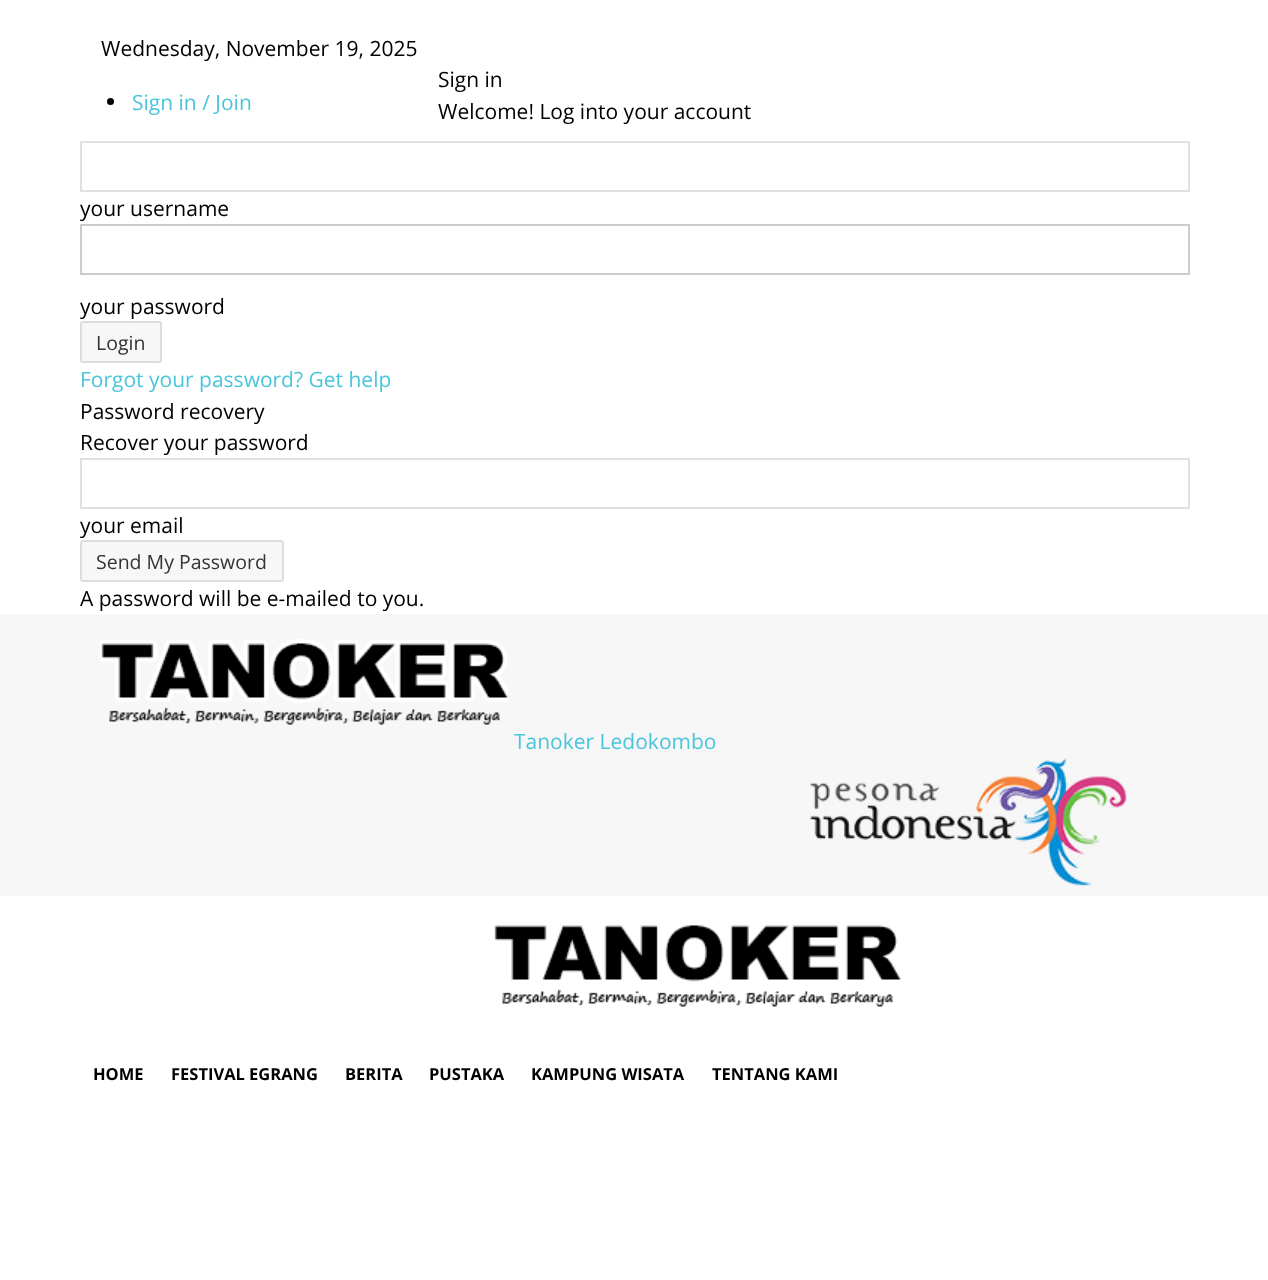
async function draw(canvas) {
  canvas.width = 1268
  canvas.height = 1280
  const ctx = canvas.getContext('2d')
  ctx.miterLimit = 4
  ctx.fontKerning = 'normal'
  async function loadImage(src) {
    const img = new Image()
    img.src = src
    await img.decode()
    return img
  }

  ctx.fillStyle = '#fff'
  ctx.fillRect(0, 0, 1268, 1280)
  ctx.font = '21px Open Sans'
  ctx.fillStyle = '#000'
  ctx.fillText('Wednesday, November 19, 2025', 101, 56)
  ctx.beginPath()
  ctx.arc(110.5, 101.5, 3.5, 0, 2 * Math.PI)
  ctx.fill()
  ctx.fillStyle = '#4ac5db'
  ctx.fillText('Sign in / Join', 132, 110)
  ctx.fillStyle = '#000'
  ctx.fillText('Sign in', 438, 87)
  ctx.fillText('Welcome! Log into your account', 438, 119)
  ctx.strokeStyle = '#e1e1e1'
  ctx.lineWidth = 2
  ctx.strokeRect(81, 142, 1108, 49)
  ctx.fillText('your username', 80, 216)
  ctx.strokeStyle = '#ccc'
  ctx.strokeRect(81, 225, 1108, 49)
  ctx.fillText('your password', 80, 314)
  ctx.fillStyle = '#f7f7f7'
  ctx.beginPath()
  ctx.roundRect(80, 321, 82, 42, 3)
  ctx.fill()
  ctx.beginPath()
  ctx.roundRect(81, 322, 80, 40, 2)
  ctx.strokeStyle = '#0000001a'
  ctx.stroke()
  ctx.font = '19.5px Open Sans'
  ctx.fillStyle = '#333'
  ctx.fillText('Login', 96, 350)
  ctx.font = '21px Open Sans'
  ctx.fillStyle = '#4ac5db'
  ctx.fillText('Forgot your password? Get help', 80, 387)
  ctx.fillStyle = '#000'
  ctx.fillText('Password recovery', 80, 419)
  ctx.fillText('Recover your password', 80, 450)
  ctx.strokeStyle = '#e1e1e1'
  ctx.strokeRect(81, 459, 1108, 49)
  ctx.fillText('your email', 80, 533)
  ctx.fillStyle = '#f7f7f7'
  ctx.beginPath()
  ctx.roundRect(80, 540, 204, 42, 3)
  ctx.fill()
  ctx.beginPath()
  ctx.roundRect(81, 541, 202, 40, 2)
  ctx.strokeStyle = '#0000001a'
  ctx.stroke()
  ctx.font = '19.5px Open Sans'
  ctx.fillStyle = '#333'
  ctx.fillText('Send My Password', 96, 569)
  ctx.font = '21px Open Sans'
  ctx.fillStyle = '#000'
  ctx.fillText('A password will be e-mailed to you.', 80, 606)
  ctx.fillStyle = '#f7f7f7'
  ctx.fillRect(0, 614, 1268, 282)
  ctx.drawImage(await loadImage('image0.png'), 100, 639, 409, 86)
  ctx.fillStyle = '#4ac5db'
  ctx.fillText('Tanoker Ledokombo', 514, 749)
  ctx.drawImage(await loadImage('image1.png'), 810, 756, 323, 130)
  ctx.drawImage(await loadImage('image2.png'), 494, 925, 408, 82)
  ctx.font = 'bold 16.5px Open Sans'
  ctx.fillStyle = '#000'
  ctx.fillText('HOME', 93, 1080)
  ctx.fillText('FESTIVAL EGRANG', 171, 1080)
  ctx.fillText('BERITA', 345, 1080)
  ctx.fillText('PUSTAKA', 429, 1080)
  ctx.fillText('KAMPUNG WISATA', 531, 1080)
  ctx.fillText('TENTANG KAMI', 712, 1080)
}

draw(document.querySelector('canvas'))
